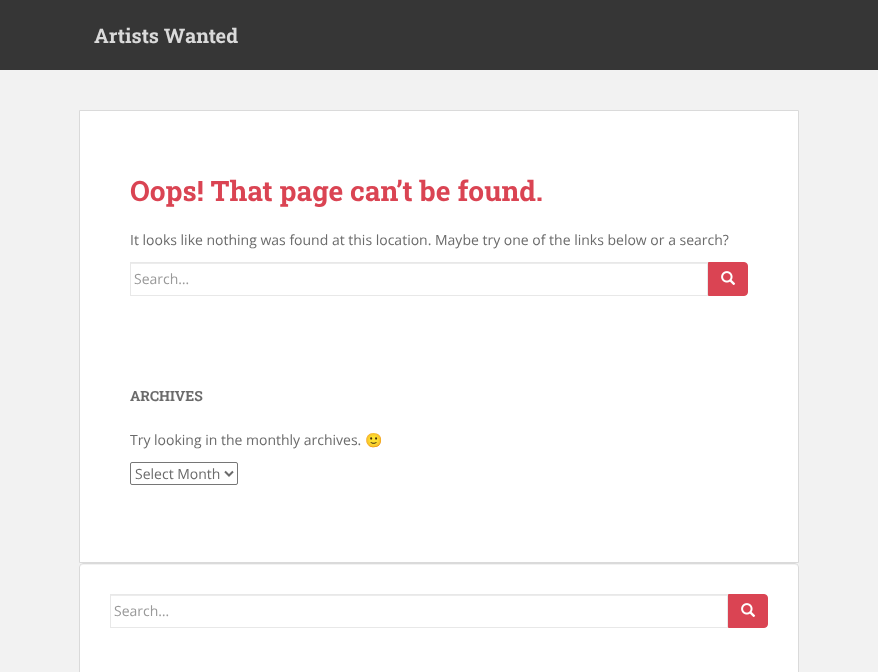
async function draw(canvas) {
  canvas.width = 878
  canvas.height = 672
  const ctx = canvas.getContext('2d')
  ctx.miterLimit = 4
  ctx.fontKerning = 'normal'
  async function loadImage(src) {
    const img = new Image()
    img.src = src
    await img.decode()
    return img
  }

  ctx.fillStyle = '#f2f2f2'
  ctx.fillRect(0, 0, 878, 672)
  ctx.fillStyle = '#363636'
  ctx.fillRect(0, 0, 878, 70)
  ctx.font = 'bold 20px Roboto Slab'
  ctx.fillStyle = '#dadada'
  ctx.fillText('Artists Wanted', 94, 43)
  ctx.fillStyle = '#fff'
  ctx.beginPath()
  ctx.rect(79.5, 110.5, 719, 452)
  ctx.fill()
  ctx.strokeStyle = '#dadada'
  ctx.stroke()
  ctx.font = 'bold 28px Roboto Slab'
  ctx.fillStyle = '#da4453'
  ctx.fillText('Oops! That page can’t be found.', 130, 201)
  ctx.font = '14px Open Sans'
  ctx.fillStyle = '#6b6b6b'
  ctx.fillText('It looks like nothing was found at this location. Maybe try one of the links below or a search?', 130, 245)
  ctx.fillStyle = '#ececec'
  ctx.fillRect(131, 263, 576, 1)
  ctx.strokeStyle = '#e8e8e8'
  ctx.strokeRect(130.5, 262.5, 577, 33)
  ctx.fillStyle = '#999'
  ctx.fillText('Search…', 134, 284)
  ctx.fillStyle = '#da4453'
  ctx.beginPath()
  ctx.roundRect(708.5, 262.5, 39, 33, [0, 3.5, 3.5, 0])
  ctx.fill()
  ctx.strokeStyle = '#da4453'
  ctx.stroke()
  ctx.drawImage(await loadImage('image0.png'), 721, 271, 15, 14)
  ctx.font = 'bold 14px Roboto Slab'
  ctx.fillStyle = '#6b6b6b'
  ctx.fillText('ARCHIVES', 130, 401)
  ctx.font = '14px Open Sans'
  ctx.fillText('Try looking in the monthly archives.', 130, 445)
  ctx.font = '14px Noto Color Emoji'
  ctx.fillText('🙂', 365, 445)
  ctx.beginPath()
  ctx.roundRect(130.5, 462.5, 107, 22, 1.5)
  ctx.strokeStyle = '#767676'
  ctx.stroke()
  ctx.beginPath()
  ctx.moveTo(225, 471.5)
  ctx.lineTo(229, 475.5)
  ctx.lineTo(233, 471.5)
  ctx.strokeStyle = '#6b6b6b'
  ctx.lineWidth = 2
  ctx.stroke()
  ctx.font = '14px Open Sans'
  ctx.fillText('Select Month', 135, 479)
  ctx.fillStyle = '#fff'
  ctx.beginPath()
  ctx.roundRect(79, 563, 720, 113, 4)
  ctx.fill()
  ctx.fillStyle = '#f2f2f2'
  ctx.beginPath()
  ctx.moveTo(83, 565)
  ctx.lineTo(795, 565)
  ctx.bezierCurveTo(797, 565, 798, 566, 798, 568)
  ctx.bezierCurveTo(798, 566, 797, 564, 795, 564)
  ctx.lineTo(83, 564)
  ctx.bezierCurveTo(81, 564, 80, 566, 80, 568)
  ctx.bezierCurveTo(80, 566, 81, 565, 83, 565)
  ctx.closePath()
  ctx.fill()
  ctx.beginPath()
  ctx.roundRect(79.5, 563.5, 719, 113, 3.5)
  ctx.strokeStyle = '#dadada'
  ctx.lineWidth = 1
  ctx.stroke()
  ctx.fillStyle = '#ececec'
  ctx.fillRect(111, 595, 616, 1)
  ctx.strokeStyle = '#e8e8e8'
  ctx.strokeRect(110.5, 594.5, 617, 33)
  ctx.fillStyle = '#999'
  ctx.fillText('Search…', 114, 616)
  ctx.fillStyle = '#da4453'
  ctx.beginPath()
  ctx.roundRect(728.5, 594.5, 39, 33, [0, 3.5, 3.5, 0])
  ctx.fill()
  ctx.strokeStyle = '#da4453'
  ctx.stroke()
  ctx.drawImage(await loadImage('image0.png'), 741, 603, 15, 14)
}

draw(document.querySelector('canvas'))
